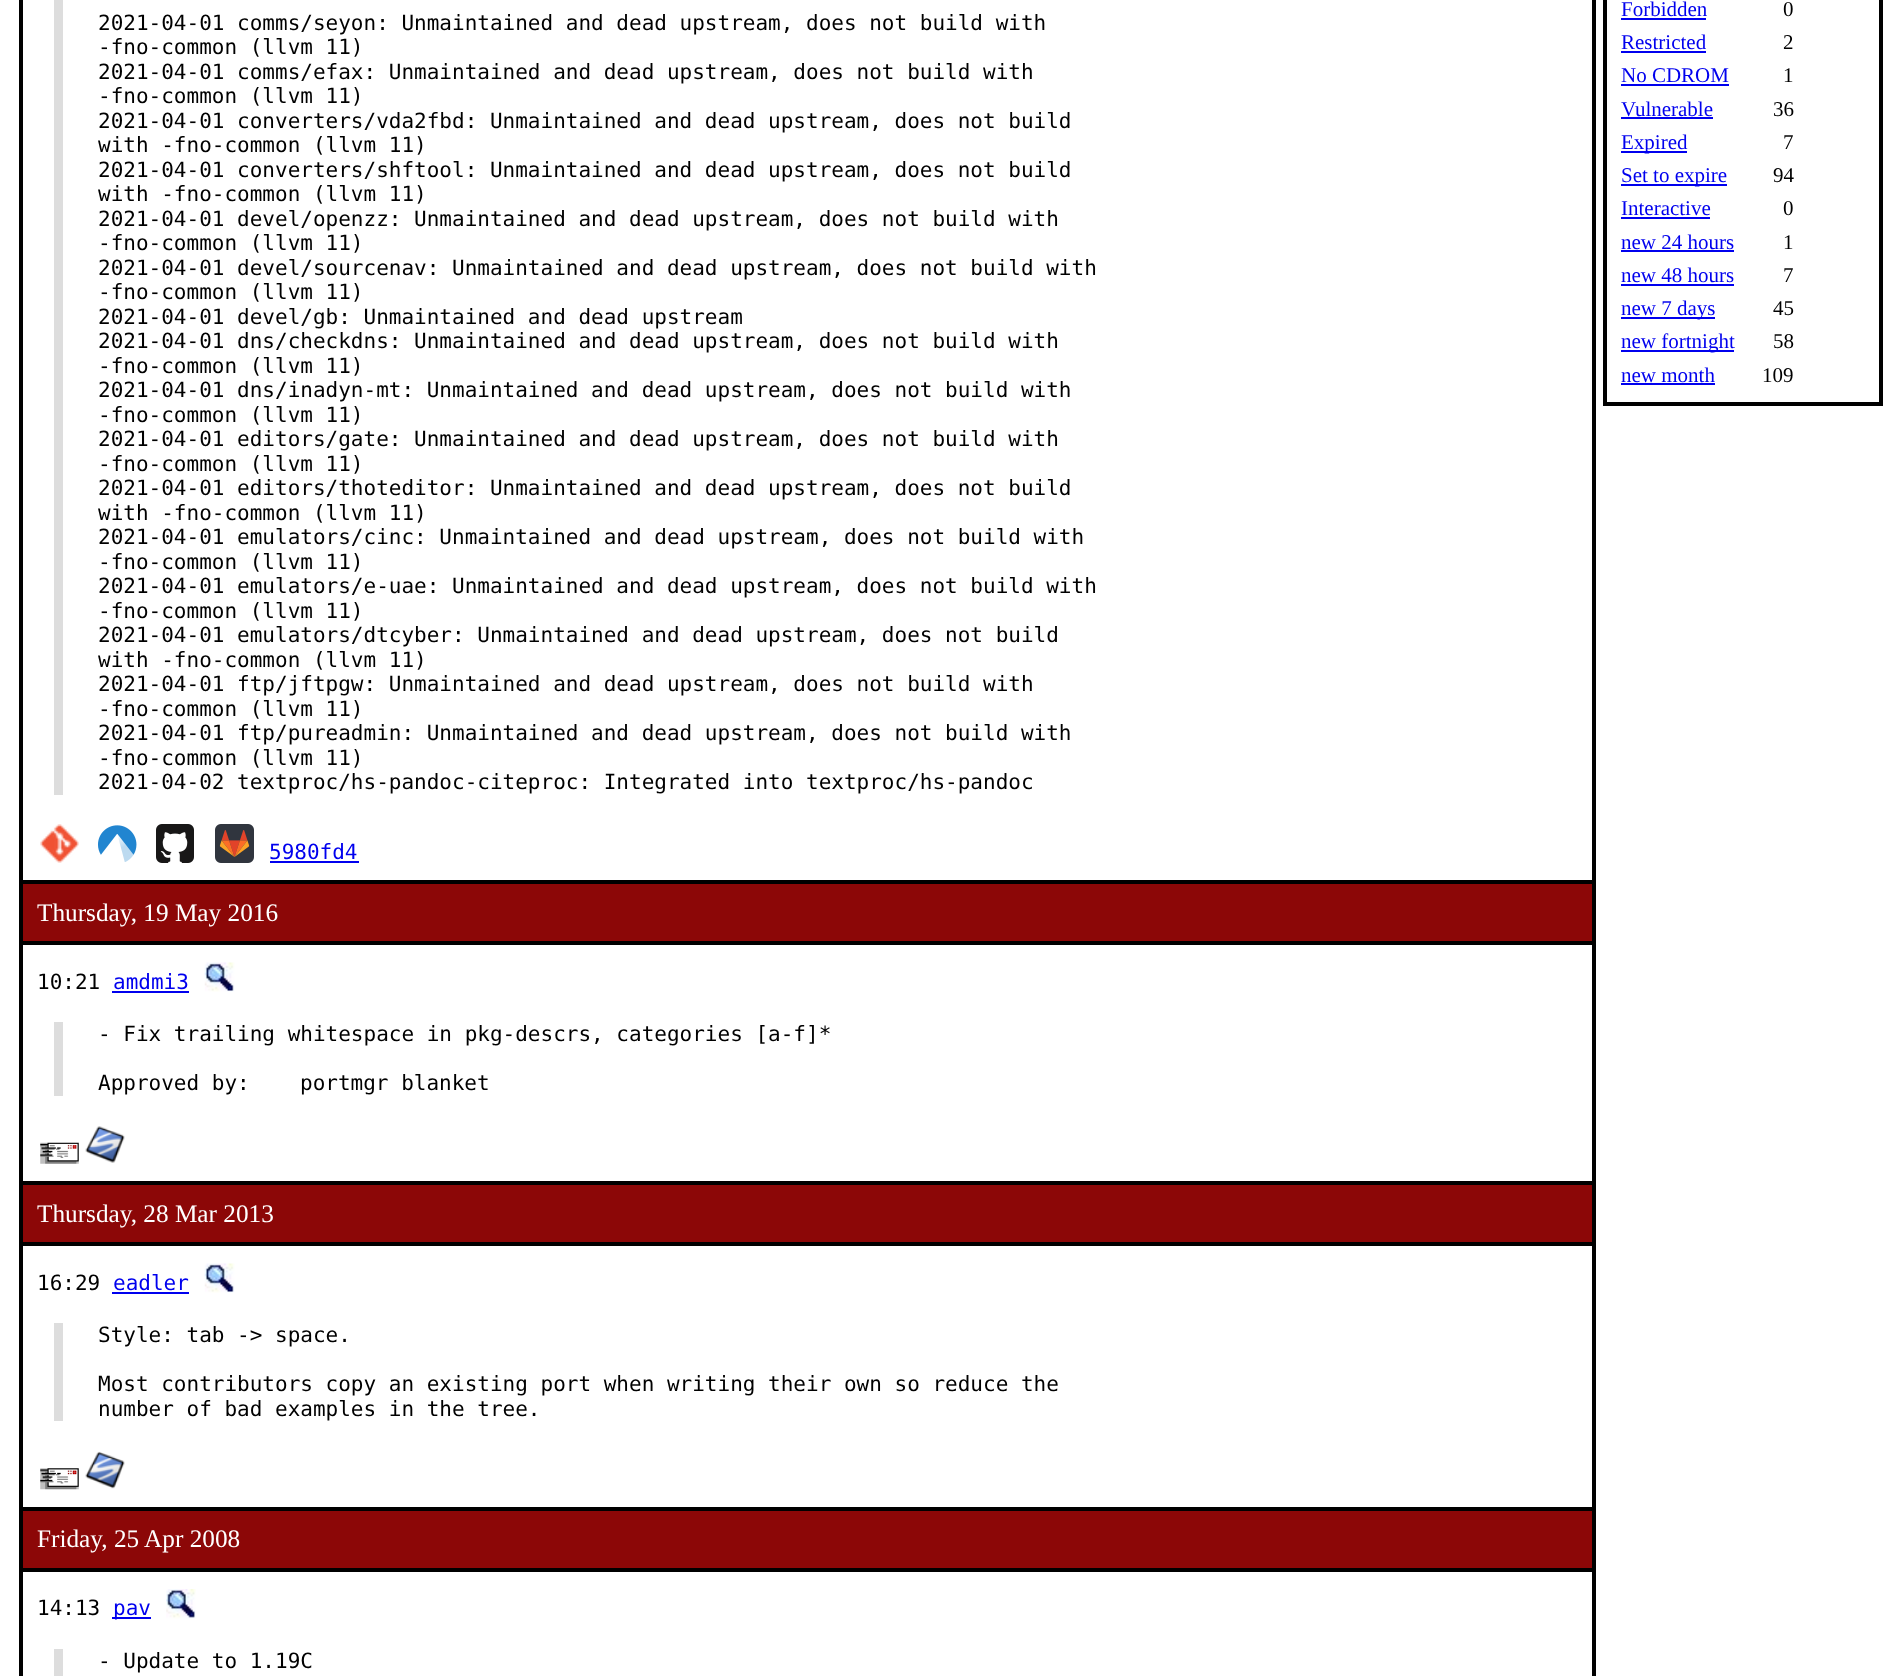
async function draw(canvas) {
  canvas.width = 1901
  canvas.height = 1676
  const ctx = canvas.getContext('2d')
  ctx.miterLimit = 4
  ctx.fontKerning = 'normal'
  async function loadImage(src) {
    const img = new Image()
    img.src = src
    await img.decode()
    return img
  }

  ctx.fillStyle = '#fff'
  ctx.fillRect(0, 0, 1901, 1676)
  ctx.strokeStyle = '#000'
  ctx.lineWidth = 2
  ctx.strokeRect(20, -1, 1575, 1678)
  ctx.strokeRect(22, -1, 1571, 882)
  ctx.fillStyle = '#ddd'
  ctx.fillRect(54, 0, 9, 795)
  ctx.font = '21px DejaVu Sans Mono'
  ctx.fillStyle = '#000'
  ctx.fillText('2021-04-01 comms/seyon: Unmaintained and dead upstream, does not build with', 98, 30)
  ctx.fillText('-fno-common (llvm 11)', 98, 54)
  ctx.fillText('2021-04-01 comms/efax: Unmaintained and dead upstream, does not build with', 98, 79)
  ctx.fillText('-fno-common (llvm 11)', 98, 103)
  ctx.fillText('2021-04-01 converters/vda2fbd: Unmaintained and dead upstream, does not build', 98, 128)
  ctx.fillText('with -fno-common (llvm 11)', 98, 152)
  ctx.fillText('2021-04-01 converters/shftool: Unmaintained and dead upstream, does not build', 98, 177)
  ctx.fillText('with -fno-common (llvm 11)', 98, 201)
  ctx.fillText('2021-04-01 devel/openzz: Unmaintained and dead upstream, does not build with', 98, 226)
  ctx.fillText('-fno-common (llvm 11)', 98, 250)
  ctx.fillText('2021-04-01 devel/sourcenav: Unmaintained and dead upstream, does not build with', 98, 275)
  ctx.fillText('-fno-common (llvm 11)', 98, 299)
  ctx.fillText('2021-04-01 devel/gb: Unmaintained and dead upstream', 98, 324)
  ctx.fillText('2021-04-01 dns/checkdns: Unmaintained and dead upstream, does not build with', 98, 348)
  ctx.fillText('-fno-common (llvm 11)', 98, 373)
  ctx.fillText('2021-04-01 dns/inadyn-mt: Unmaintained and dead upstream, does not build with', 98, 397)
  ctx.fillText('-fno-common (llvm 11)', 98, 422)
  ctx.fillText('2021-04-01 editors/gate: Unmaintained and dead upstream, does not build with', 98, 446)
  ctx.fillText('-fno-common (llvm 11)', 98, 471)
  ctx.fillText('2021-04-01 editors/thoteditor: Unmaintained and dead upstream, does not build', 98, 495)
  ctx.fillText('with -fno-common (llvm 11)', 98, 520)
  ctx.fillText('2021-04-01 emulators/cinc: Unmaintained and dead upstream, does not build with', 98, 544)
  ctx.fillText('-fno-common (llvm 11)', 98, 569)
  ctx.fillText('2021-04-01 emulators/e-uae: Unmaintained and dead upstream, does not build with', 98, 593)
  ctx.fillText('-fno-common (llvm 11)', 98, 618)
  ctx.fillText('2021-04-01 emulators/dtcyber: Unmaintained and dead upstream, does not build', 98, 642)
  ctx.fillText('with -fno-common (llvm 11)', 98, 667)
  ctx.fillText('2021-04-01 ftp/jftpgw: Unmaintained and dead upstream, does not build with', 98, 691)
  ctx.fillText('-fno-common (llvm 11)', 98, 716)
  ctx.fillText('2021-04-01 ftp/pureadmin: Unmaintained and dead upstream, does not build with', 98, 740)
  ctx.fillText('-fno-common (llvm 11)', 98, 765)
  ctx.fillText('2021-04-02 textproc/hs-pandoc-citeproc: Integrated into textproc/hs-pandoc', 98, 789)
  ctx.drawImage(await loadImage('image0.png'), 40, 824, 39, 39)
  ctx.drawImage(await loadImage('image1.png'), 98, 825, 39, 37)
  ctx.drawImage(await loadImage('image2.png'), 156, 824, 38, 39)
  ctx.drawImage(await loadImage('image3.png'), 215, 824, 39, 39)
  ctx.fillStyle = '#00e'
  ctx.fillText('5980fd4', 269, 859)
  ctx.fillRect(270, 861, 89, 2)
  ctx.fillStyle = '#8c0707'
  ctx.beginPath()
  ctx.rect(22, 883, 1571, 59)
  ctx.fill()
  ctx.stroke()
  ctx.font = '25.25px Liberation Serif'
  ctx.fillStyle = '#fff'
  ctx.fillText('Thursday, 19 May 2016', 37, 921)
  ctx.strokeRect(22, 944, 1571, 238)
  ctx.font = '21px DejaVu Sans Mono'
  ctx.fillStyle = '#000'
  ctx.fillText('10:21', 37, 989)
  ctx.fillStyle = '#00e'
  ctx.fillText('amdmi3', 113, 989)
  ctx.fillRect(112, 991, 77, 2)
  ctx.drawImage(await loadImage('image4.png'), 204, 962, 31, 30)
  ctx.fillStyle = '#ddd'
  ctx.fillRect(54, 1022, 9, 74)
  ctx.fillStyle = '#000'
  ctx.fillText('- Fix trailing whitespace in pkg-descrs, categories [a-f]*', 98, 1041)
  ctx.fillText('Approved by:', 98, 1090)
  ctx.fillText('portmgr blanket', 300, 1090)
  ctx.drawImage(await loadImage('image5.png'), 40, 1142, 39, 22)
  ctx.drawImage(await loadImage('image6.png'), 85, 1126, 40, 37)
  ctx.fillStyle = '#8c0707'
  ctx.beginPath()
  ctx.rect(22, 1184, 1571, 59)
  ctx.fill()
  ctx.stroke()
  ctx.font = '25.25px Liberation Serif'
  ctx.fillStyle = '#fff'
  ctx.fillText('Thursday, 28 Mar 2013', 37, 1222)
  ctx.strokeRect(22, 1245, 1571, 263)
  ctx.font = '21px DejaVu Sans Mono'
  ctx.fillStyle = '#000'
  ctx.fillText('16:29', 37, 1290)
  ctx.fillStyle = '#00e'
  ctx.fillText('eadler', 113, 1290)
  ctx.fillRect(112, 1292, 77, 2)
  ctx.drawImage(await loadImage('image4.png'), 204, 1263, 31, 30)
  ctx.fillStyle = '#ddd'
  ctx.fillRect(54, 1323, 9, 98)
  ctx.fillStyle = '#000'
  ctx.fillText('Style: tab -> space.', 98, 1342)
  ctx.fillText('Most contributors copy an existing port when writing their own so reduce the', 98, 1391)
  ctx.fillText('number of bad examples in the tree.', 98, 1416)
  ctx.drawImage(await loadImage('image7.png'), 40, 1468, 39, 22)
  ctx.drawImage(await loadImage('image8.png'), 85, 1451, 40, 38)
  ctx.fillStyle = '#8c0707'
  ctx.beginPath()
  ctx.rect(22, 1510, 1571, 59)
  ctx.fill()
  ctx.stroke()
  ctx.font = '25.25px Liberation Serif'
  ctx.fillStyle = '#fff'
  ctx.fillText('Friday, 25 Apr 2008', 37, 1547)
  ctx.strokeRect(22, 1571, 1571, 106)
  ctx.font = '21px DejaVu Sans Mono'
  ctx.fillStyle = '#000'
  ctx.fillText('14:13', 37, 1615)
  ctx.fillStyle = '#00e'
  ctx.fillRect(112, 1617, 39, 2)
  ctx.fillText('pav', 113, 1615)
  ctx.drawImage(await loadImage('image9.png'), 166, 1589, 30, 30)
  ctx.fillStyle = '#ddd'
  ctx.fillRect(54, 1649, 9, 27)
  ctx.fillStyle = '#000'
  ctx.fillText('- Update to 1.19C', 98, 1668)
  ctx.strokeRect(1604, -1, 278, 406)
  ctx.strokeRect(1606, -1, 274, 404)
  ctx.font = '21px Liberation Serif'
  ctx.fillStyle = '#00e'
  ctx.fillText('Forbidden', 1621, 16)
  ctx.fillRect(1621, 18, 85, 2)
  ctx.fillStyle = '#000'
  ctx.fillText('0', 1783, 16)
  ctx.fillStyle = '#00e'
  ctx.fillText('Restricted', 1621, 49)
  ctx.fillRect(1621, 51, 85, 2)
  ctx.fillStyle = '#000'
  ctx.fillText('2', 1783, 49)
  ctx.fillStyle = '#00e'
  ctx.fillText('No CDROM', 1621, 82)
  ctx.fillRect(1621, 84, 108, 2)
  ctx.fillStyle = '#000'
  ctx.fillText('1', 1783, 82)
  ctx.fillStyle = '#00e'
  ctx.fillText('Vulnerable', 1621, 116)
  ctx.fillRect(1621, 117, 92, 2)
  ctx.fillStyle = '#000'
  ctx.fillText('36', 1773, 116)
  ctx.fillStyle = '#00e'
  ctx.fillRect(1621, 151, 66, 2)
  ctx.fillText('Expired', 1621, 149)
  ctx.fillStyle = '#000'
  ctx.fillText('7', 1783, 149)
  ctx.fillStyle = '#00e'
  ctx.fillRect(1621, 184, 106, 2)
  ctx.fillText('Set to expire', 1621, 182)
  ctx.fillStyle = '#000'
  ctx.fillText('94', 1773, 182)
  ctx.fillStyle = '#00e'
  ctx.fillText('Interactive', 1621, 215)
  ctx.fillRect(1621, 217, 89, 2)
  ctx.fillStyle = '#000'
  ctx.fillText('0', 1783, 215)
  ctx.fillStyle = '#00e'
  ctx.fillText('new 24 hours', 1621, 249)
  ctx.fillRect(1621, 250, 113, 2)
  ctx.fillStyle = '#000'
  ctx.fillText('1', 1783, 249)
  ctx.fillStyle = '#00e'
  ctx.fillText('new 48 hours', 1621, 282)
  ctx.fillRect(1621, 284, 113, 2)
  ctx.fillStyle = '#000'
  ctx.fillText('7', 1783, 282)
  ctx.fillStyle = '#00e'
  ctx.fillRect(1621, 317, 94, 2)
  ctx.fillText('new 7 days', 1621, 315)
  ctx.fillStyle = '#000'
  ctx.fillText('45', 1773, 315)
  ctx.fillStyle = '#00e'
  ctx.fillRect(1621, 350, 113, 2)
  ctx.fillText('new fortnight', 1621, 348)
  ctx.fillStyle = '#000'
  ctx.fillText('58', 1773, 348)
  ctx.fillStyle = '#00e'
  ctx.fillText('new month', 1621, 382)
  ctx.fillRect(1621, 383, 94, 2)
  ctx.fillStyle = '#000'
  ctx.fillText('109', 1762, 382)
}

draw(document.querySelector('canvas'))
